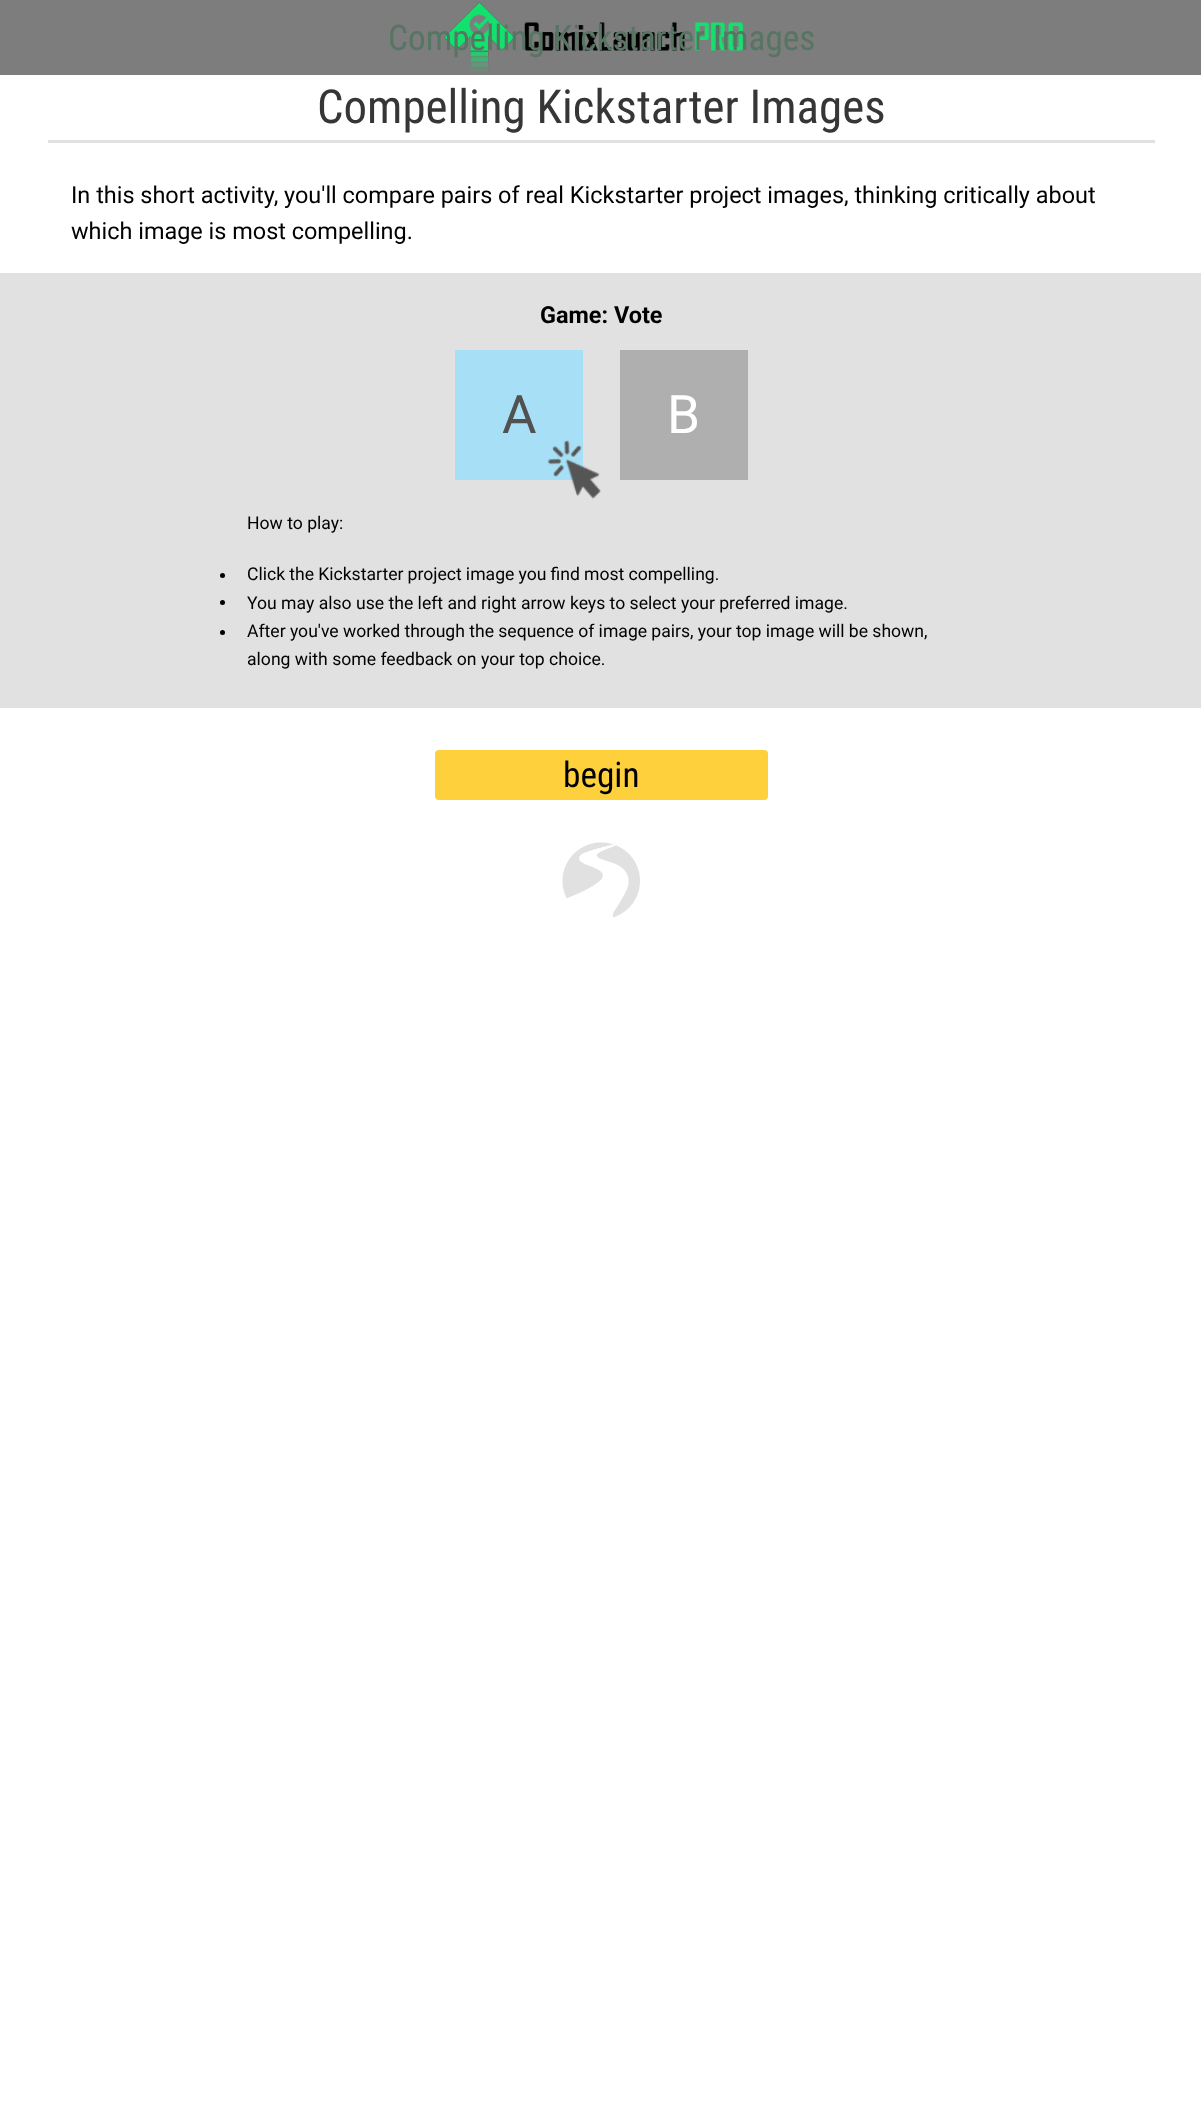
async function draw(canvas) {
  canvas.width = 1201
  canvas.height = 2111
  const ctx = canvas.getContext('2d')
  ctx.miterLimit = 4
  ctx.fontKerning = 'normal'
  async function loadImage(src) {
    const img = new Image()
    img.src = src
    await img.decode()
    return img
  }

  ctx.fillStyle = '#fff'
  ctx.fillRect(0, 0, 1201, 2111)
  ctx.fillStyle = '#7d7d7d'
  ctx.fillRect(0, 0, 1201, 75)
  ctx.drawImage(await loadImage('image0.png'), 444, 2, 300, 70)
  ctx.font = '35.25px Roboto Condensed'
  ctx.fillStyle = '#567563'
  ctx.fillText('Compelling Kickstarter Images', 388, 50)
  ctx.fillStyle = '#e1e1e1'
  ctx.fillRect(48, 140, 1107, 3)
  ctx.font = '46.9px Roboto Condensed'
  ctx.fillStyle = '#363636'
  ctx.fillText('Compelling Kickstarter Images', 317, 123)
  ctx.font = '23.45px Roboto'
  ctx.fillStyle = '#000'
  ctx.fillText('In this short activity, you\'ll compare pairs of real Kickstarter project images, thinking critically about', 71, 203)
  ctx.fillText('which image is most compelling.', 71, 239)
  ctx.fillStyle = '#e1e1e1'
  ctx.fillRect(0, 273, 1201, 435)
  ctx.font = 'bold 23.45px Roboto'
  ctx.fillStyle = '#000'
  ctx.fillText('Game: Vote', 540, 323)
  ctx.fillStyle = '#a7e0f6'
  ctx.fillRect(455, 350, 128, 130)
  ctx.font = '53px Roboto'
  ctx.fillStyle = '#515151'
  ctx.fillText('A', 502, 433)
  ctx.drawImage(await loadImage('image1.png'), 547, 440, 54, 59)
  ctx.fillStyle = '#afafaf'
  ctx.fillRect(620, 350, 128, 130)
  ctx.fillStyle = '#fff'
  ctx.fillText('B', 667, 433)
  ctx.font = '17.6px Roboto'
  ctx.fillStyle = '#000'
  ctx.fillText('How to play:', 247, 529)
  ctx.beginPath()
  ctx.arc(222.5, 575.5, 2.5, 0, 2 * Math.PI)
  ctx.fill()
  ctx.wordSpacing = '-0.25px'
  ctx.fillText('Click the Kickstarter project image you find most compelling.', 247, 580)
  ctx.beginPath()
  ctx.arc(222.5, 602.5, 2.5, 0, 2 * Math.PI)
  ctx.fill()
  ctx.wordSpacing = '0px'
  ctx.fillText('You may also use the left and right arrow keys to select your preferred image.', 247, 609)
  ctx.beginPath()
  ctx.arc(222.5, 632.5, 2.5, 0, 2 * Math.PI)
  ctx.fill()
  ctx.wordSpacing = '-0.1px'
  ctx.fillText('After you\'ve worked through the sequence of image pairs, your top image will be shown,', 247, 637)
  ctx.wordSpacing = '0px'
  ctx.fillText('along with some feedback on your top choice.', 247, 665)
  ctx.fillStyle = '#fed03c'
  ctx.beginPath()
  ctx.roundRect(435, 750, 333, 50, 4)
  ctx.fill()
  ctx.font = '35.25px Roboto Condensed'
  ctx.fillStyle = '#000'
  ctx.fillText('begin', 563, 787)
  ctx.drawImage(await loadImage('image2.png'), 562, 842, 78, 76)
}

draw(document.querySelector('canvas'))
